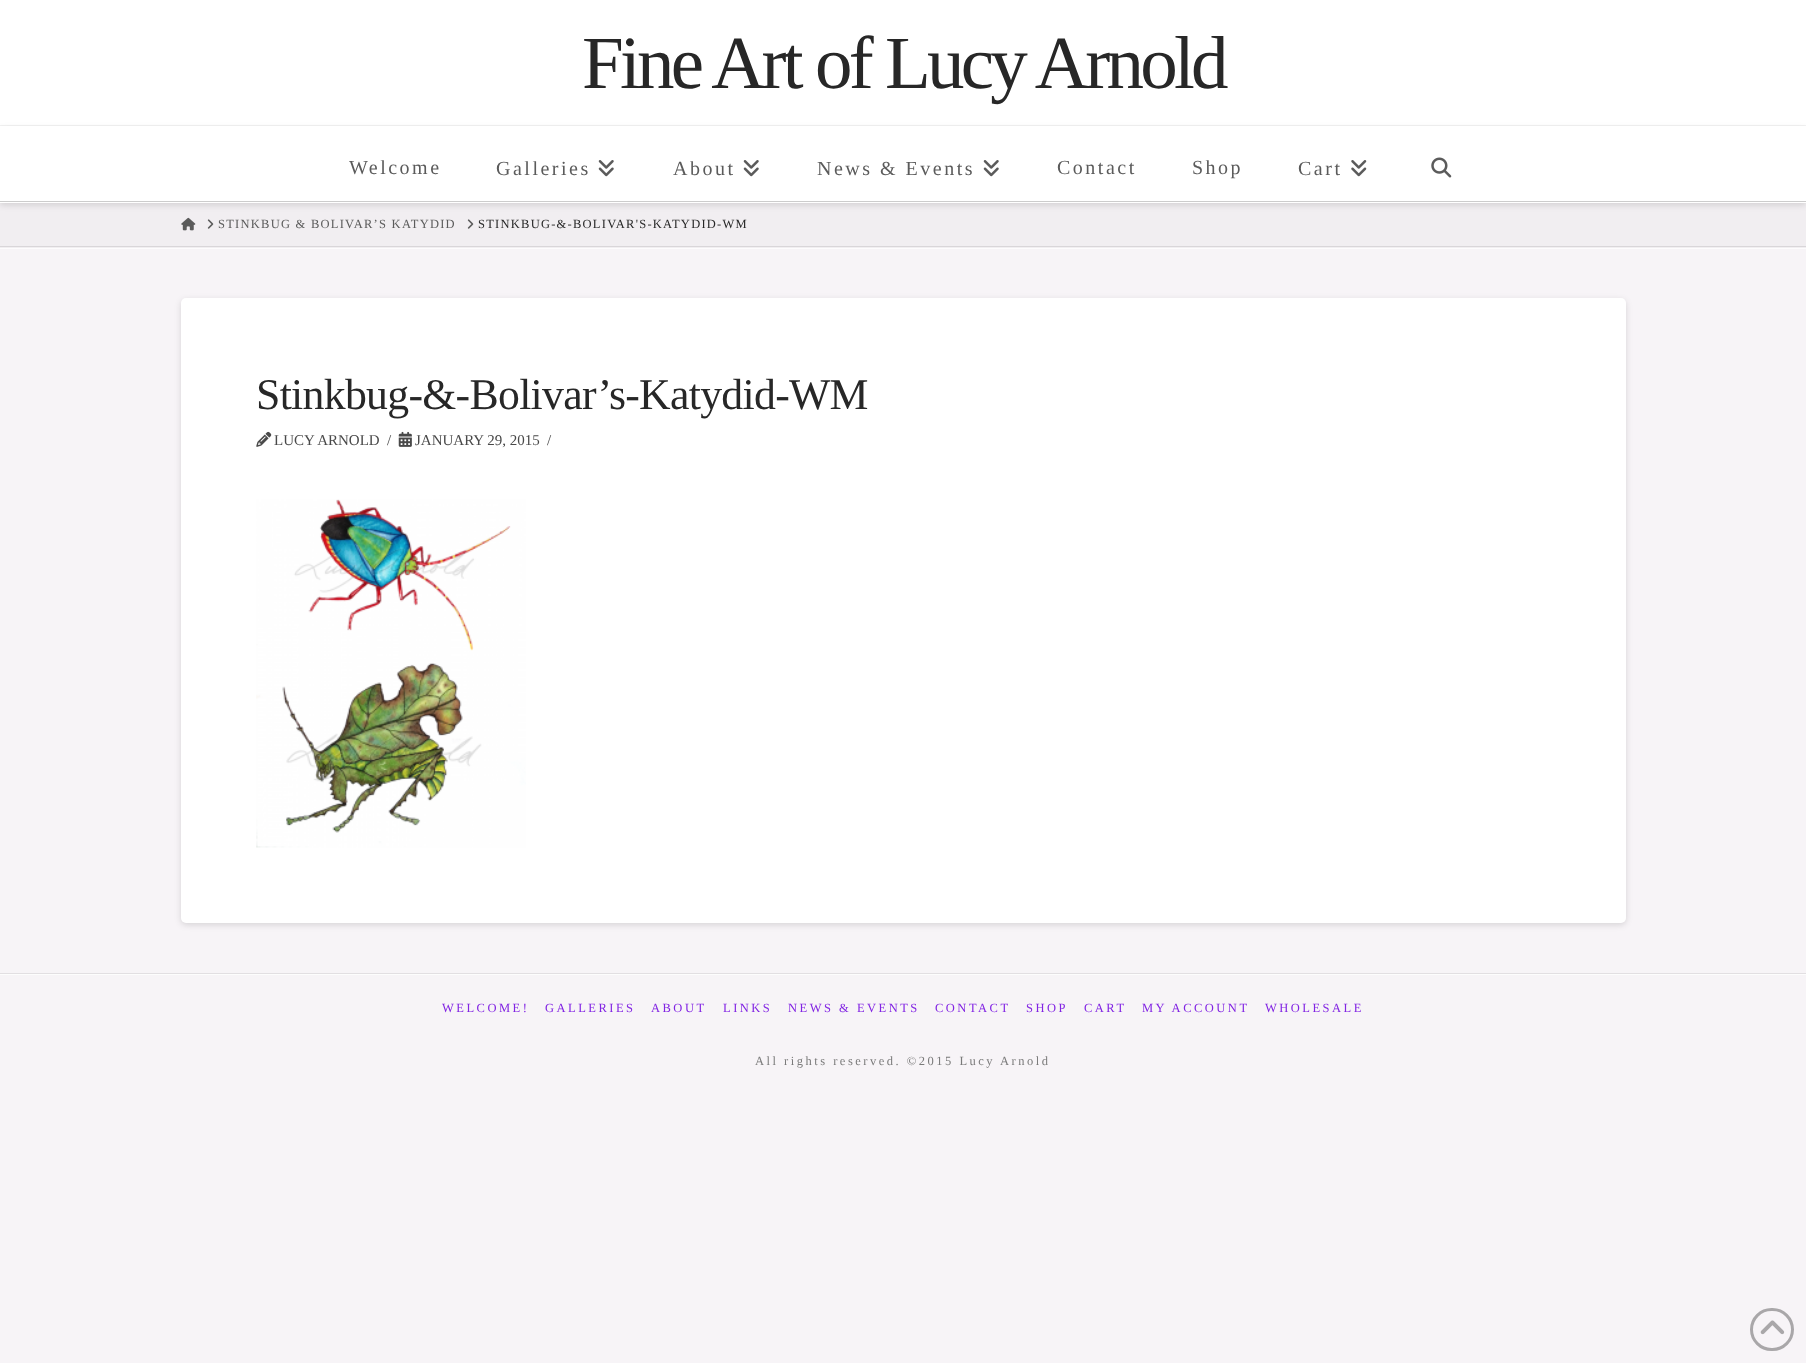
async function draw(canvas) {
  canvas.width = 1806
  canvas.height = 1363
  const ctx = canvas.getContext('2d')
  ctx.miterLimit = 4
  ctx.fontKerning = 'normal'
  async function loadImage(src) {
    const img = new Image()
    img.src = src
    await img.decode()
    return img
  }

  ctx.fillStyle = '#f7f4f7'
  ctx.fillRect(0, 0, 1806, 1363)
  ctx.fillStyle = '#fff'
  ctx.fillRect(0, 0, 1806, 125)
  ctx.fillStyle = '#f2f2f2'
  ctx.fillRect(0, 125, 1806, 1)
  ctx.letterSpacing = '-3.75px'
  ctx.font = '75px Liberation Serif'
  ctx.fillStyle = '#272727'
  ctx.fillText('Fine Art of Lucy Arnold', 582, 88)
  ctx.fillStyle = '#f1eef1'
  ctx.fillRect(0, 203, 1806, 45)
  ctx.fillStyle = '#00000021'
  ctx.filter = 'blur(3px)'
  ctx.beginPath()
  ctx.rect(0, 129, 1806, 76)
  ctx.fill()
  ctx.filter = 'none'
  ctx.fillStyle = '#fff'
  ctx.fillRect(0, 126, 1806, 77)
  ctx.fillStyle = '#ccc'
  ctx.fillRect(0, 201, 1806, 1)
  ctx.letterSpacing = '2.5px'
  ctx.font = '20px Liberation Serif'
  ctx.fillStyle = '#5b5b5b'
  ctx.fillText('Welcome', 349, 174)
  ctx.fillText('Galleries', 496, 175)
  ctx.drawImage(await loadImage('image0.png'), 598, 160, 16, 17)
  ctx.fillText('About', 673, 175)
  ctx.drawImage(await loadImage('image0.png'), 743, 160, 16, 17)
  ctx.fillText('News & Events', 817, 175)
  ctx.drawImage(await loadImage('image0.png'), 983, 160, 16, 17)
  ctx.fillText('Contact', 1057, 174)
  ctx.fillText('Shop', 1192, 174)
  ctx.fillText('Cart', 1298, 175)
  ctx.drawImage(await loadImage('image1.png'), 1351, 160, 16, 17)
  ctx.drawImage(await loadImage('image2.png'), 1431, 157, 21, 21)
  ctx.fillStyle = '#fdfcfd'
  ctx.fillRect(0, 248, 1806, 1)
  ctx.fillStyle = '#d9d6d9'
  ctx.fillRect(0, 246, 1806, 1)
  ctx.drawImage(await loadImage('image3.png'), 181, 217, 15, 14)
  ctx.drawImage(await loadImage('image4.png'), 207, 219, 7, 10)
  ctx.letterSpacing = '1.25px'
  ctx.font = '12.5px Liberation Serif'
  ctx.fillStyle = '#5b5b5b'
  ctx.fillText('STINKBUG & BOLIVAR’S KATYDID', 218, 228)
  ctx.drawImage(await loadImage('image4.png'), 467, 219, 7, 10)
  ctx.fillStyle = '#272727'
  ctx.fillText('STINKBUG-&-BOLIVAR\'S-KATYDID-WM', 478, 228)
  ctx.fillStyle = '#00000021'
  ctx.filter = 'blur(3px)'
  ctx.beginPath()
  ctx.roundRect(181, 300, 1445, 625, 5)
  ctx.fill()
  ctx.filter = 'none'
  ctx.fillStyle = '#fff'
  ctx.beginPath()
  ctx.roundRect(181, 298, 1445, 625, 5)
  ctx.fill()
  ctx.letterSpacing = '-0.7px'
  ctx.font = '43.75px Liberation Serif'
  ctx.fillStyle = '#272727'
  ctx.fillText('Stinkbug-&-Bolivar’s-Katydid-WM', 256, 409)
  ctx.drawImage(await loadImage('image5.png'), 256, 431, 16, 16)
  ctx.letterSpacing = '0px'
  ctx.font = '15px Liberation Serif'
  ctx.fillStyle = '#494949'
  ctx.fillText('LUCY ARNOLD', 274, 445)
  ctx.fillText('/', 387, 445)
  ctx.drawImage(await loadImage('image6.png'), 398, 431, 14, 16)
  ctx.fillText('JANUARY 29, 2015', 415, 445)
  ctx.fillText('/', 547, 445)
  ctx.drawImage(await loadImage('image7.png'), 256, 499, 270, 349)
  ctx.fillStyle = '#fdfdfd'
  ctx.fillRect(0, 974, 1806, 1)
  ctx.fillStyle = '#e2dfe2'
  ctx.fillRect(0, 973, 1806, 1)
  ctx.letterSpacing = '2.5px'
  ctx.font = '12.5px Liberation Serif'
  ctx.fillStyle = '#8224e3'
  ctx.fillText('WELCOME!', 442, 1012)
  ctx.fillText('GALLERIES', 545, 1012)
  ctx.fillText('ABOUT', 651, 1012)
  ctx.fillText('LINKS', 723, 1012)
  ctx.fillText('NEWS & EVENTS', 788, 1012)
  ctx.fillText('CONTACT', 935, 1012)
  ctx.fillText('SHOP', 1026, 1012)
  ctx.fillText('CART', 1084, 1012)
  ctx.fillText('MY ACCOUNT', 1142, 1012)
  ctx.fillText('WHOLESALE', 1265, 1012)
  ctx.fillStyle = '#7a7a7a'
  ctx.fillText('All rights reserved. ©2015 Lucy Arnold', 755, 1065)
  ctx.beginPath()
  ctx.roundRect(1751.5, 1309.5, 41, 40, 20)
  ctx.strokeStyle = '#a9a7a9'
  ctx.lineWidth = 3
  ctx.stroke()
  ctx.drawImage(await loadImage('image8.png'), 1760, 1320, 25, 15)
}

draw(document.querySelector('canvas'))
